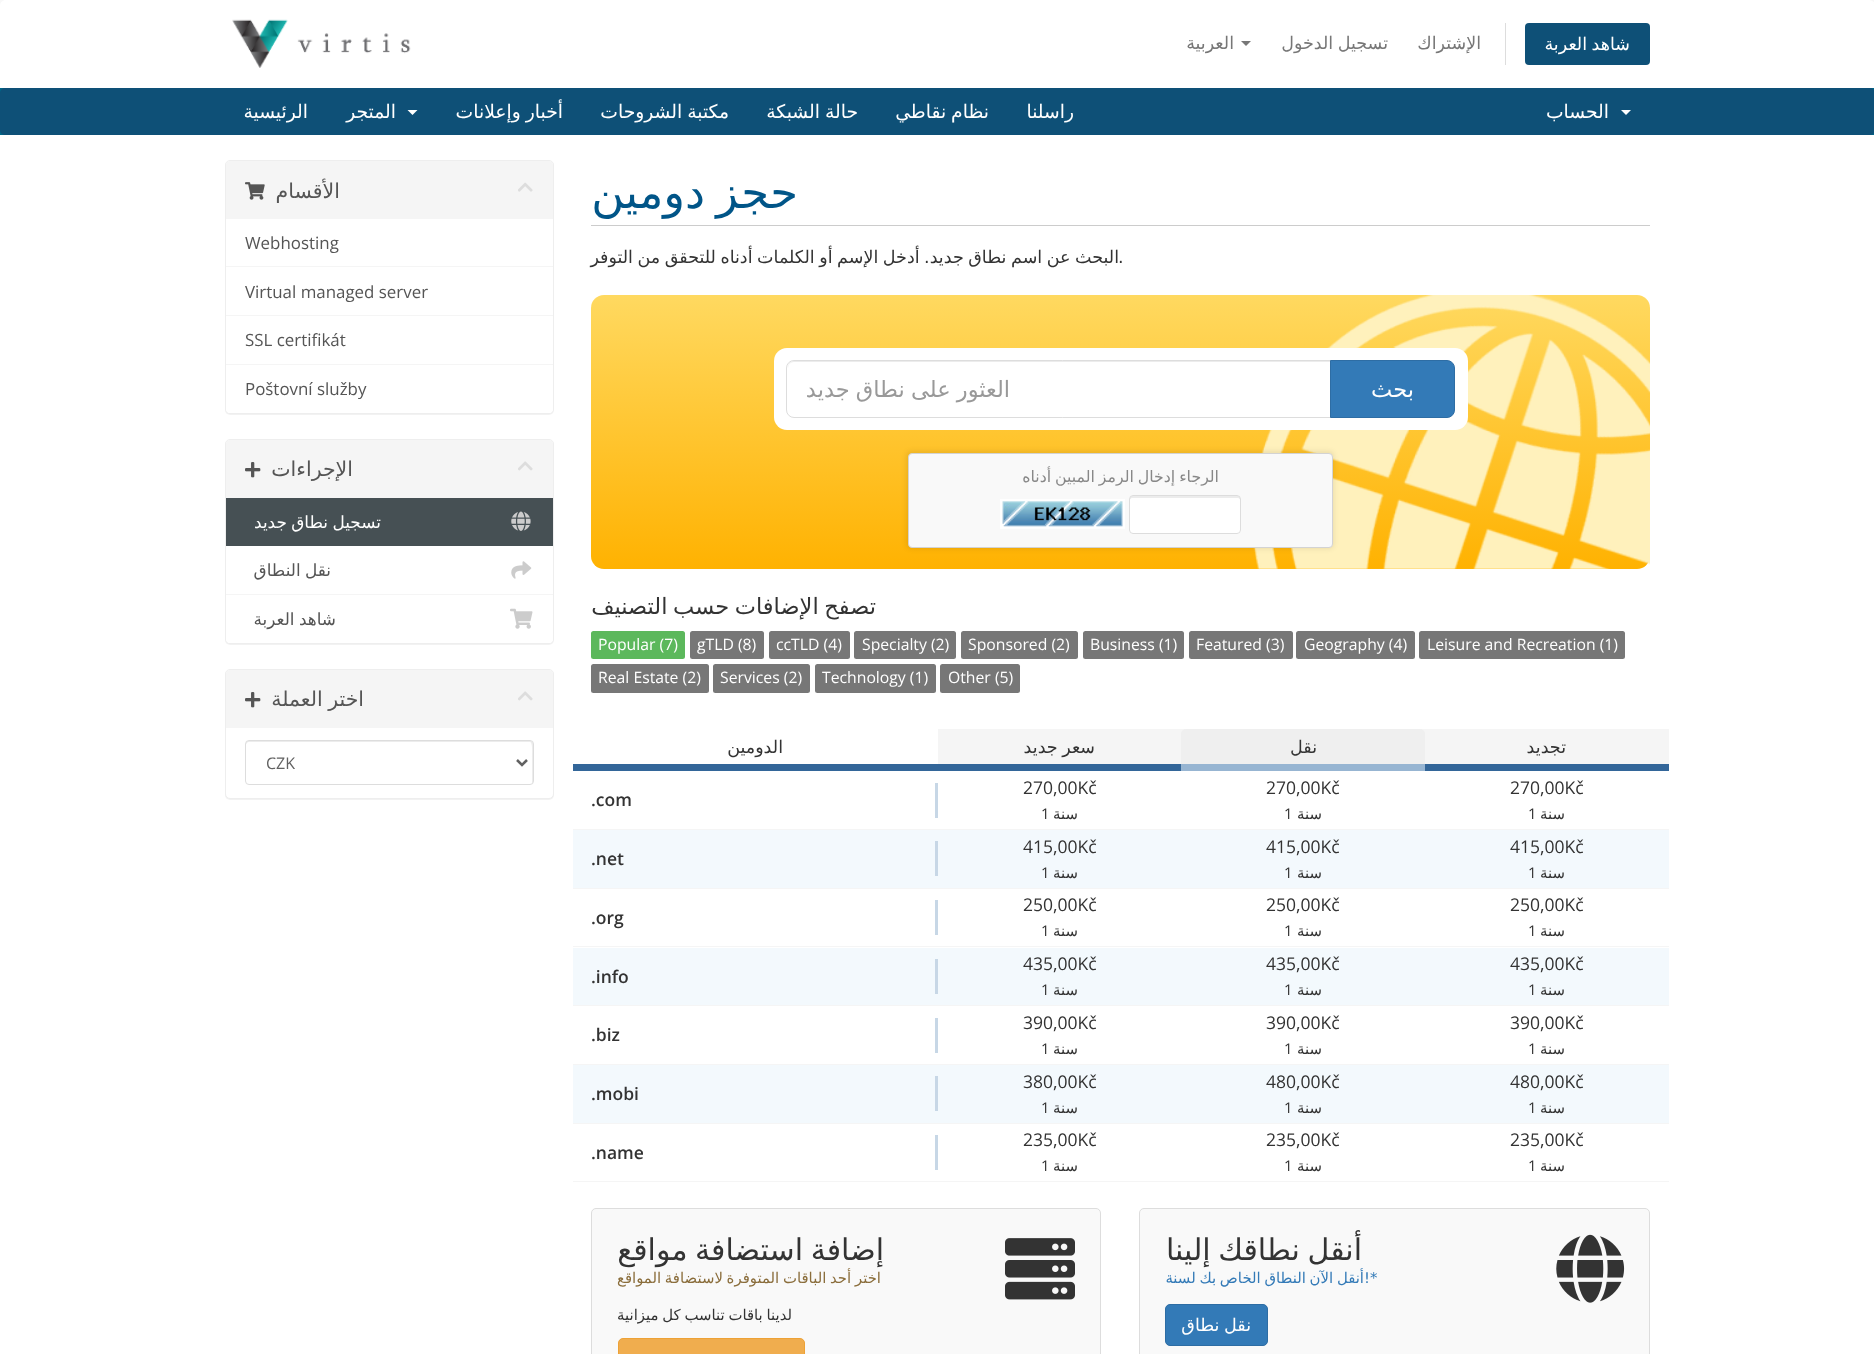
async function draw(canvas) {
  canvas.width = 1874
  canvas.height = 1354
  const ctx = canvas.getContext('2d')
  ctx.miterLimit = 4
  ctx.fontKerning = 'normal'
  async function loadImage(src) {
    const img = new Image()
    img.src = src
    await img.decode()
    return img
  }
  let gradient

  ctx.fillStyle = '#f8f8f8'
  ctx.fillRect(0, 0, 1874, 1354)
  ctx.fillStyle = '#fff'
  ctx.beginPath()
  ctx.moveTo(6, 0)
  ctx.lineTo(1869, 0)
  ctx.bezierCurveTo(1872.5, 0, 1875, 2.5, 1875, 6)
  ctx.lineTo(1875, 88)
  ctx.lineTo(0, 88)
  ctx.lineTo(0, 6)
  ctx.bezierCurveTo(0, 2.5, 2.5, 0, 6, 0)
  ctx.closePath()
  ctx.fill()
  ctx.fillStyle = '#ddd'
  ctx.fillRect(1505, 23, 1, 42)
  ctx.fillStyle = '#0e5077'
  ctx.beginPath()
  ctx.roundRect(1525, 23, 125, 42, 4)
  ctx.fill()
  ctx.wordSpacing = '-1px'
  ctx.direction = 'rtl'
  ctx.font = '17.5px DejaVu Sans'
  ctx.fillStyle = '#fff'
  ctx.fillText('شاهد العربة', 1630, 50)
  ctx.wordSpacing = '0px'
  ctx.fillStyle = '#777'
  ctx.fillText('الإشتراك', 1481, 49)
  ctx.wordSpacing = '-1px'
  ctx.fillText('تسجيل الدخول', 1388, 49)
  ctx.beginPath()
  ctx.moveTo(1241, 41)
  ctx.lineTo(1251, 41)
  ctx.lineTo(1246, 46)
  ctx.closePath()
  ctx.fill()
  ctx.wordSpacing = '0px'
  ctx.fillText('العربية', 1234, 49)
  ctx.drawImage(await loadImage('image0.png'), 232, 19, 179, 49)
  ctx.fillStyle = '#006687'
  ctx.fillRect(0, 88, 1874, 47)
  ctx.fillStyle = '#0e5077'
  ctx.beginPath()
  ctx.roundRect(0, 88, 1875, 47, 5)
  ctx.fill()
  ctx.fillStyle = '#fff'
  ctx.beginPath()
  ctx.moveTo(1621, 110)
  ctx.lineTo(1631, 110)
  ctx.lineTo(1626, 115)
  ctx.closePath()
  ctx.fill()
  ctx.font = '18.75px DejaVu Sans'
  ctx.fillText('الحساب', 1609, 118)
  ctx.fillText('راسلنا', 1074, 118)
  ctx.wordSpacing = '-1px'
  ctx.fillText('نظام نقاطي', 989, 118)
  ctx.fillText('حالة الشبكة', 858, 118)
  ctx.fillText('مكتبة الشروحات', 729, 118)
  ctx.fillText('أخبار وإعلانات', 563, 118)
  ctx.beginPath()
  ctx.moveTo(407.5, 110)
  ctx.lineTo(417.5, 110)
  ctx.lineTo(412.5, 115)
  ctx.closePath()
  ctx.fill()
  ctx.wordSpacing = '0px'
  ctx.fillText('المتجر', 396, 118)
  ctx.fillText('الرئيسية', 308, 118)
  ctx.fillRect(0, 135, 1874, 1219)
  ctx.fillStyle = '#ccc'
  ctx.fillRect(591, 225, 1059, 1)
  ctx.wordSpacing = '-3px'
  ctx.font = '45px DejaVu Sans'
  ctx.fillStyle = '#058'
  ctx.fillText('حجز دومين', 798, 208)
  ctx.fillStyle = '#0000000d'
  ctx.filter = 'blur(0.5px)'
  ctx.beginPath()
  ctx.roundRect(225, 161, 329, 254, 5)
  ctx.fill()
  ctx.filter = 'none'
  ctx.fillStyle = '#fff'
  ctx.beginPath()
  ctx.roundRect(225.5, 160.5, 328, 253, 4.5)
  ctx.fill()
  ctx.strokeStyle = '#eee'
  ctx.stroke()
  ctx.fillStyle = '#f5f5f5'
  ctx.beginPath()
  ctx.roundRect(226, 161, 327, 58, [4, 4, 0, 0])
  ctx.fill()
  ctx.drawImage(await loadImage('image1.png'), 518, 182, 15, 10)
  ctx.wordSpacing = '0px'
  ctx.font = '20.5px DejaVu Sans'
  ctx.fillStyle = '#555'
  ctx.fillText('الأقسام', 340, 198)
  ctx.drawImage(await loadImage('image2.png'), 245, 182, 20, 18)
  ctx.fillStyle = '#f5f5f5'
  ctx.fillRect(226, 266, 327, 1)
  ctx.direction = 'ltr'
  ctx.font = '16.9px Open Sans'
  ctx.fillStyle = '#555'
  ctx.fillText('Webhosting', 245, 249)
  ctx.fillStyle = '#f5f5f5'
  ctx.fillRect(226, 315, 327, 1)
  ctx.fillStyle = '#555'
  ctx.fillText('Virtual managed server', 245, 298)
  ctx.fillText('SSL certifikát', 245, 346)
  ctx.fillStyle = '#fff'
  ctx.beginPath()
  ctx.roundRect(226, 364, 327, 49, [0, 0, 4, 4])
  ctx.fill()
  ctx.fillStyle = '#f5f5f5'
  ctx.fillRect(226, 364, 327, 1)
  ctx.fillStyle = '#555'
  ctx.fillText('Poštovní služby', 245, 395)
  ctx.fillStyle = '#0000000d'
  ctx.filter = 'blur(0.5px)'
  ctx.beginPath()
  ctx.roundRect(225, 440, 329, 205, 5)
  ctx.fill()
  ctx.filter = 'none'
  ctx.fillStyle = '#fff'
  ctx.beginPath()
  ctx.roundRect(225.5, 439.5, 328, 204, 4.5)
  ctx.fill()
  ctx.stroke()
  ctx.fillStyle = '#f5f5f5'
  ctx.beginPath()
  ctx.roundRect(226, 440, 327, 58, [4, 4, 0, 0])
  ctx.fill()
  ctx.drawImage(await loadImage('image3.png'), 518, 461, 15, 10)
  ctx.direction = 'rtl'
  ctx.font = '20.5px DejaVu Sans'
  ctx.fillStyle = '#555'
  ctx.fillText('الإجراءات', 353, 476)
  ctx.drawImage(await loadImage('image4.png'), 245, 462, 16, 16)
  ctx.fillStyle = '#465054'
  ctx.fillRect(226, 498, 327, 48)
  ctx.drawImage(await loadImage('image5.png'), 511, 511, 20, 20)
  ctx.wordSpacing = '-1px'
  ctx.font = '16.9px DejaVu Sans'
  ctx.fillStyle = '#fff'
  ctx.fillText('تسجيل نطاق جديد', 381, 528)
  ctx.drawImage(await loadImage('image6.png'), 511, 561, 21, 18)
  ctx.fillStyle = '#555'
  ctx.fillText('نقل النطاق', 331, 576)
  ctx.fillStyle = '#fff'
  ctx.beginPath()
  ctx.roundRect(226, 594, 327, 49, [0, 0, 4, 4])
  ctx.fill()
  ctx.fillStyle = '#f5f5f5'
  ctx.fillRect(226, 594, 327, 1)
  ctx.drawImage(await loadImage('image7.png'), 510, 608, 23, 21)
  ctx.fillStyle = '#555'
  ctx.fillText('شاهد العربة', 336, 625)
  ctx.fillStyle = '#0000000d'
  ctx.filter = 'blur(0.5px)'
  ctx.beginPath()
  ctx.roundRect(225, 670, 329, 130, 5)
  ctx.fill()
  ctx.filter = 'none'
  ctx.fillStyle = '#fff'
  ctx.beginPath()
  ctx.roundRect(225.5, 669.5, 328, 129, 4.5)
  ctx.fill()
  ctx.stroke()
  ctx.fillStyle = '#f5f5f5'
  ctx.beginPath()
  ctx.roundRect(226, 670, 327, 58, [4, 4, 0, 0])
  ctx.fill()
  ctx.drawImage(await loadImage('image3.png'), 518, 691, 15, 10)
  ctx.font = '20.5px DejaVu Sans'
  ctx.fillStyle = '#555'
  ctx.fillText('اختر العملة', 364, 706)
  ctx.drawImage(await loadImage('image4.png'), 245, 692, 16, 16)
  ctx.fillStyle = '#ececec'
  ctx.beginPath()
  ctx.moveTo(249, 742)
  ctx.lineTo(530, 742)
  ctx.bezierCurveTo(533, 742, 532, 756, 532, 757)
  ctx.lineTo(532, 784)
  ctx.bezierCurveTo(532, 783, 533, 782, 533, 782)
  ctx.lineTo(533, 744)
  ctx.bezierCurveTo(533, 742, 532, 741, 530, 741)
  ctx.lineTo(248, 741)
  ctx.bezierCurveTo(247, 741, 246, 742, 246, 744)
  ctx.lineTo(246, 745)
  ctx.bezierCurveTo(246, 744, 247, 742, 249, 742)
  ctx.closePath()
  ctx.fill()
  ctx.beginPath()
  ctx.roundRect(245.5, 740.5, 288, 44, 3.5)
  ctx.strokeStyle = '#ddd'
  ctx.stroke()
  ctx.beginPath()
  ctx.moveTo(517, 760)
  ctx.lineTo(522, 765)
  ctx.lineTo(527, 760)
  ctx.strokeStyle = '#626262'
  ctx.lineWidth = 2.5
  ctx.stroke()
  ctx.wordSpacing = '0px'
  ctx.direction = 'ltr'
  ctx.font = '16px Open Sans'
  ctx.fillStyle = '#626262'
  ctx.fillText('CZK', 266, 769)
  ctx.font = '17.5px DejaVu Sans'
  ctx.fillStyle = '#333'
  ctx.fillText('.', 1118, 263)
  ctx.wordSpacing = '-1px'
  ctx.direction = 'rtl'
  ctx.fillText('البحث عن اسم نطاق جديد. أدخل الإسم أو الكلمات أدناه للتحقق من التوفر', 1119, 263)
  gradient = ctx.createLinearGradient(1121, 295, 1121, 569)
  gradient.addColorStop(0, '#ffd960')
  gradient.addColorStop(1, '#ffb201')
  ctx.fillStyle = gradient
  ctx.beginPath()
  ctx.roundRect(591, 295, 1059, 274, 13)
  ctx.fill()
  ctx.drawImage(await loadImage('image8.png'), 1253, 295, 397, 274)
  ctx.fillStyle = '#fff'
  ctx.beginPath()
  ctx.roundRect(774, 348, 694, 82, 13)
  ctx.fill()
  ctx.fillStyle = '#ececec'
  ctx.beginPath()
  ctx.moveTo(794, 362)
  ctx.lineTo(1330, 362)
  ctx.lineTo(1330, 361)
  ctx.lineTo(794, 361)
  ctx.bezierCurveTo(791, 361, 788, 364, 788, 367)
  ctx.lineTo(788, 369)
  ctx.bezierCurveTo(788, 365, 790, 362, 794, 362)
  ctx.closePath()
  ctx.fill()
  ctx.beginPath()
  ctx.roundRect(786.5, 360.5, 544, 57, [7.5, 0, 0, 7.5])
  ctx.strokeStyle = '#ddd'
  ctx.lineWidth = 1
  ctx.stroke()
  ctx.fillStyle = '#337ab7'
  ctx.beginPath()
  ctx.roundRect(1330.5, 360.5, 124, 57, [0, 7.5, 7.5, 0])
  ctx.fill()
  ctx.strokeStyle = '#2e6da4'
  ctx.stroke()
  ctx.wordSpacing = '0px'
  ctx.font = '22.5px DejaVu Sans'
  ctx.fillStyle = '#fff'
  ctx.fillText('بحث', 1414, 397)
  ctx.wordSpacing = '-1px'
  ctx.fillStyle = '#999'
  ctx.fillText('العثور على نطاق جديد', 1010, 397)
  ctx.fillStyle = '#00000014'
  ctx.filter = 'blur(2.5px)'
  ctx.beginPath()
  ctx.roundRect(906, 451, 428, 98, 5)
  ctx.fill()
  ctx.filter = 'none'
  ctx.fillStyle = '#f9f9f9'
  ctx.beginPath()
  ctx.roundRect(908.5, 453.5, 424, 94, 3.5)
  ctx.fill()
  ctx.strokeStyle = '#d3d3d3'
  ctx.stroke()
  ctx.font = '15.75px DejaVu Sans'
  ctx.fillStyle = '#888'
  ctx.fillText('الرجاء إدخال الرمز المبين أدناه', 1219, 482)
  ctx.fillStyle = '#fff'
  ctx.beginPath()
  ctx.roundRect(1129, 495, 112, 39, 4)
  ctx.fill()
  ctx.fillStyle = '#ececec'
  ctx.beginPath()
  ctx.moveTo(1132, 498)
  ctx.lineTo(1238, 498)
  ctx.bezierCurveTo(1239, 498, 1240, 499, 1240, 500)
  ctx.lineTo(1240, 498)
  ctx.bezierCurveTo(1240, 497, 1239, 496, 1238, 496)
  ctx.lineTo(1132, 496)
  ctx.bezierCurveTo(1131, 496, 1130, 497, 1130, 498)
  ctx.lineTo(1130, 500)
  ctx.bezierCurveTo(1130, 499, 1131, 498, 1132, 498)
  ctx.closePath()
  ctx.fill()
  ctx.beginPath()
  ctx.roundRect(1129.5, 495.5, 111, 38, 3.5)
  ctx.strokeStyle = '#ddd'
  ctx.stroke()
  ctx.drawImage(await loadImage('image9.png'), 1000, 499, 125, 30)
  ctx.wordSpacing = '-1.5px'
  ctx.font = '22.5px DejaVu Sans'
  ctx.fillStyle = '#333'
  ctx.fillText('تصفح الإضافات حسب التصنيف', 876, 614)
  ctx.fillStyle = '#777'
  ctx.beginPath()
  ctx.roundRect(1419, 631, 206, 28, 2.5)
  ctx.fill()
  ctx.wordSpacing = '0px'
  ctx.direction = 'ltr'
  ctx.font = '15.75px Open Sans'
  ctx.fillStyle = '#fff'
  ctx.fillText('Leisure and Recreation (1)', 1427, 650)
  ctx.fillStyle = '#777'
  ctx.beginPath()
  ctx.roundRect(1296, 631, 119, 28, 2.5)
  ctx.fill()
  ctx.fillStyle = '#fff'
  ctx.fillText('Geography (4)', 1304, 650)
  ctx.fillStyle = '#777'
  ctx.beginPath()
  ctx.roundRect(1189, 631, 104, 28, 2.5)
  ctx.fill()
  ctx.fillStyle = '#fff'
  ctx.fillText('Featured (3)', 1196, 650)
  ctx.fillStyle = '#777'
  ctx.beginPath()
  ctx.roundRect(1083, 631, 101, 28, 2.5)
  ctx.fill()
  ctx.fillStyle = '#fff'
  ctx.fillText('Business (1)', 1090, 650)
  ctx.fillStyle = '#777'
  ctx.beginPath()
  ctx.roundRect(961, 631, 117, 28, 2.5)
  ctx.fill()
  ctx.fillStyle = '#fff'
  ctx.fillText('Sponsored (2)', 968, 650)
  ctx.fillStyle = '#777'
  ctx.beginPath()
  ctx.roundRect(854, 631, 102, 28, 2.5)
  ctx.fill()
  ctx.fillStyle = '#fff'
  ctx.fillText('Specialty (2)', 862, 650)
  ctx.fillStyle = '#777'
  ctx.beginPath()
  ctx.roundRect(769, 631, 81, 28, 2.5)
  ctx.fill()
  ctx.fillStyle = '#fff'
  ctx.fillText('ccTLD (4)', 776, 650)
  ctx.fillStyle = '#777'
  ctx.beginPath()
  ctx.roundRect(690, 631, 74, 28, 2.5)
  ctx.fill()
  ctx.fillStyle = '#fff'
  ctx.fillText('gTLD (8)', 697, 650)
  ctx.fillStyle = '#5cb85c'
  ctx.beginPath()
  ctx.roundRect(591, 631, 94, 28, 2.5)
  ctx.fill()
  ctx.fillStyle = '#fff'
  ctx.fillText('Popular (7)', 598, 650)
  ctx.fillStyle = '#777'
  ctx.beginPath()
  ctx.roundRect(940, 664, 80, 29, 2.5)
  ctx.fill()
  ctx.fillStyle = '#fff'
  ctx.fillText('Other (5)', 948, 683)
  ctx.fillStyle = '#777'
  ctx.beginPath()
  ctx.roundRect(815, 664, 121, 29, 2.5)
  ctx.fill()
  ctx.fillStyle = '#fff'
  ctx.fillText('Technology (1)', 822, 683)
  ctx.fillStyle = '#777'
  ctx.beginPath()
  ctx.roundRect(713, 664, 97, 29, 2.5)
  ctx.fill()
  ctx.fillStyle = '#fff'
  ctx.fillText('Services (2)', 720, 683)
  ctx.fillStyle = '#777'
  ctx.beginPath()
  ctx.roundRect(591, 664, 118, 29, 2.5)
  ctx.fill()
  ctx.fillStyle = '#fff'
  ctx.fillText('Real Estate (2)', 598, 683)
  ctx.fillStyle = '#f5f5f5'
  ctx.fillRect(938, 729, 731, 35)
  ctx.fillStyle = '#369'
  ctx.fillRect(1425, 764, 244, 7)
  ctx.direction = 'rtl'
  ctx.font = '17.5px DejaVu Sans'
  ctx.fillStyle = '#333'
  ctx.fillText('تجديد', 1566, 753)
  ctx.fillStyle = '#efefef'
  ctx.beginPath()
  ctx.roundRect(1181, 729, 244, 42, [5, 5, 0, 0])
  ctx.fill()
  ctx.fillStyle = '#97b5d2'
  ctx.fillRect(1181, 764, 244, 7)
  ctx.fillStyle = '#333'
  ctx.fillText('نقل', 1317, 753)
  ctx.wordSpacing = '-1px'
  ctx.fillText('سعر جديد', 1095, 753)
  ctx.fillStyle = '#369'
  ctx.fillRect(573, 764, 608, 7)
  ctx.wordSpacing = '0px'
  ctx.fillStyle = '#333'
  ctx.fillText('الدومين', 783, 753)
  ctx.fillStyle = '#f5f5f5'
  ctx.fillRect(573, 829, 1096, 1)
  ctx.direction = 'ltr'
  ctx.font = '17.5px Open Sans'
  ctx.fillStyle = '#333'
  ctx.fillText('270,00Kč', 1510, 794)
  ctx.direction = 'rtl'
  ctx.font = '14.9px DejaVu Sans'
  ctx.fillText('سنة', 1565, 819)
  ctx.direction = 'ltr'
  ctx.font = '14.9px Open Sans'
  ctx.fillText('1', 1528, 819)
  ctx.font = '17.5px Open Sans'
  ctx.fillText('270,00Kč', 1266, 794)
  ctx.direction = 'rtl'
  ctx.font = '14.9px DejaVu Sans'
  ctx.fillText('سنة', 1322, 819)
  ctx.direction = 'ltr'
  ctx.font = '14.9px Open Sans'
  ctx.fillText('1', 1284, 819)
  ctx.font = '17.5px Open Sans'
  ctx.fillText('270,00Kč', 1023, 794)
  ctx.direction = 'rtl'
  ctx.font = '14.9px DejaVu Sans'
  ctx.fillText('سنة', 1078, 819)
  ctx.direction = 'ltr'
  ctx.font = '14.9px Open Sans'
  ctx.fillText('1', 1041, 819)
  ctx.fillStyle = '#c7d7e6'
  ctx.fillRect(935, 783, 3, 35)
  ctx.font = '600 17.5px Open Sans'
  ctx.fillStyle = '#333'
  ctx.fillText('.com', 591, 806)
  ctx.fillStyle = '#f3f9fd'
  ctx.fillRect(573, 830, 1096, 58)
  ctx.fillStyle = '#f5f5f5'
  ctx.fillRect(573, 888, 1096, 1)
  ctx.font = '17.5px Open Sans'
  ctx.fillStyle = '#333'
  ctx.fillText('415,00Kč', 1510, 853)
  ctx.direction = 'rtl'
  ctx.font = '14.9px DejaVu Sans'
  ctx.fillText('سنة', 1565, 878)
  ctx.direction = 'ltr'
  ctx.font = '14.9px Open Sans'
  ctx.fillText('1', 1528, 878)
  ctx.font = '17.5px Open Sans'
  ctx.fillText('415,00Kč', 1266, 853)
  ctx.direction = 'rtl'
  ctx.font = '14.9px DejaVu Sans'
  ctx.fillText('سنة', 1322, 878)
  ctx.direction = 'ltr'
  ctx.font = '14.9px Open Sans'
  ctx.fillText('1', 1284, 878)
  ctx.font = '17.5px Open Sans'
  ctx.fillText('415,00Kč', 1023, 853)
  ctx.direction = 'rtl'
  ctx.font = '14.9px DejaVu Sans'
  ctx.fillText('سنة', 1078, 878)
  ctx.direction = 'ltr'
  ctx.font = '14.9px Open Sans'
  ctx.fillText('1', 1041, 878)
  ctx.fillStyle = '#c7d7e6'
  ctx.fillRect(935, 841, 3, 35)
  ctx.font = '600 17.5px Open Sans'
  ctx.fillStyle = '#333'
  ctx.fillText('.net', 591, 865)
  ctx.fillStyle = '#f5f5f5'
  ctx.fillRect(573, 946, 1096, 1)
  ctx.font = '17.5px Open Sans'
  ctx.fillStyle = '#333'
  ctx.fillText('250,00Kč', 1510, 911)
  ctx.direction = 'rtl'
  ctx.font = '14.9px DejaVu Sans'
  ctx.fillText('سنة', 1565, 936)
  ctx.direction = 'ltr'
  ctx.font = '14.9px Open Sans'
  ctx.fillText('1', 1528, 936)
  ctx.font = '17.5px Open Sans'
  ctx.fillText('250,00Kč', 1266, 911)
  ctx.direction = 'rtl'
  ctx.font = '14.9px DejaVu Sans'
  ctx.fillText('سنة', 1322, 936)
  ctx.direction = 'ltr'
  ctx.font = '14.9px Open Sans'
  ctx.fillText('1', 1284, 936)
  ctx.font = '17.5px Open Sans'
  ctx.fillText('250,00Kč', 1023, 911)
  ctx.direction = 'rtl'
  ctx.font = '14.9px DejaVu Sans'
  ctx.fillText('سنة', 1078, 936)
  ctx.direction = 'ltr'
  ctx.font = '14.9px Open Sans'
  ctx.fillText('1', 1041, 936)
  ctx.fillStyle = '#c7d7e6'
  ctx.fillRect(935, 900, 3, 35)
  ctx.font = '600 17.5px Open Sans'
  ctx.fillStyle = '#333'
  ctx.fillText('.org', 591, 924)
  ctx.fillStyle = '#f3f9fd'
  ctx.fillRect(573, 948, 1096, 57)
  ctx.fillStyle = '#f5f5f5'
  ctx.fillRect(573, 1005, 1096, 1)
  ctx.font = '17.5px Open Sans'
  ctx.fillStyle = '#333'
  ctx.fillText('435,00Kč', 1510, 970)
  ctx.direction = 'rtl'
  ctx.font = '14.9px DejaVu Sans'
  ctx.fillText('سنة', 1565, 995)
  ctx.direction = 'ltr'
  ctx.font = '14.9px Open Sans'
  ctx.fillText('1', 1528, 995)
  ctx.font = '17.5px Open Sans'
  ctx.fillText('435,00Kč', 1266, 970)
  ctx.direction = 'rtl'
  ctx.font = '14.9px DejaVu Sans'
  ctx.fillText('سنة', 1322, 995)
  ctx.direction = 'ltr'
  ctx.font = '14.9px Open Sans'
  ctx.fillText('1', 1284, 995)
  ctx.font = '17.5px Open Sans'
  ctx.fillText('435,00Kč', 1023, 970)
  ctx.direction = 'rtl'
  ctx.font = '14.9px DejaVu Sans'
  ctx.fillText('سنة', 1078, 995)
  ctx.direction = 'ltr'
  ctx.font = '14.9px Open Sans'
  ctx.fillText('1', 1041, 995)
  ctx.fillStyle = '#c7d7e6'
  ctx.fillRect(935, 959, 3, 35)
  ctx.font = '600 17.5px Open Sans'
  ctx.fillStyle = '#333'
  ctx.fillText('.info', 591, 983)
  ctx.fillStyle = '#f5f5f5'
  ctx.fillRect(573, 1064, 1096, 1)
  ctx.font = '17.5px Open Sans'
  ctx.fillStyle = '#333'
  ctx.fillText('390,00Kč', 1510, 1029)
  ctx.direction = 'rtl'
  ctx.font = '14.9px DejaVu Sans'
  ctx.fillText('سنة', 1565, 1054)
  ctx.direction = 'ltr'
  ctx.font = '14.9px Open Sans'
  ctx.fillText('1', 1528, 1054)
  ctx.font = '17.5px Open Sans'
  ctx.fillText('390,00Kč', 1266, 1029)
  ctx.direction = 'rtl'
  ctx.font = '14.9px DejaVu Sans'
  ctx.fillText('سنة', 1322, 1054)
  ctx.direction = 'ltr'
  ctx.font = '14.9px Open Sans'
  ctx.fillText('1', 1284, 1054)
  ctx.font = '17.5px Open Sans'
  ctx.fillText('390,00Kč', 1023, 1029)
  ctx.direction = 'rtl'
  ctx.font = '14.9px DejaVu Sans'
  ctx.fillText('سنة', 1078, 1054)
  ctx.direction = 'ltr'
  ctx.font = '14.9px Open Sans'
  ctx.fillText('1', 1041, 1054)
  ctx.fillStyle = '#c7d7e6'
  ctx.fillRect(935, 1018, 3, 35)
  ctx.font = '600 17.5px Open Sans'
  ctx.fillStyle = '#333'
  ctx.fillText('.biz', 591, 1041)
  ctx.fillStyle = '#f3f9fd'
  ctx.fillRect(573, 1065, 1096, 58)
  ctx.fillStyle = '#f5f5f5'
  ctx.fillRect(573, 1123, 1096, 1)
  ctx.font = '17.5px Open Sans'
  ctx.fillStyle = '#333'
  ctx.fillText('480,00Kč', 1510, 1088)
  ctx.direction = 'rtl'
  ctx.font = '14.9px DejaVu Sans'
  ctx.fillText('سنة', 1565, 1113)
  ctx.direction = 'ltr'
  ctx.font = '14.9px Open Sans'
  ctx.fillText('1', 1528, 1113)
  ctx.font = '17.5px Open Sans'
  ctx.fillText('480,00Kč', 1266, 1088)
  ctx.direction = 'rtl'
  ctx.font = '14.9px DejaVu Sans'
  ctx.fillText('سنة', 1322, 1113)
  ctx.direction = 'ltr'
  ctx.font = '14.9px Open Sans'
  ctx.fillText('1', 1284, 1113)
  ctx.font = '17.5px Open Sans'
  ctx.fillText('380,00Kč', 1023, 1088)
  ctx.direction = 'rtl'
  ctx.font = '14.9px DejaVu Sans'
  ctx.fillText('سنة', 1078, 1113)
  ctx.direction = 'ltr'
  ctx.font = '14.9px Open Sans'
  ctx.fillText('1', 1041, 1113)
  ctx.fillStyle = '#c7d7e6'
  ctx.fillRect(935, 1076, 3, 35)
  ctx.font = '600 17.5px Open Sans'
  ctx.fillStyle = '#333'
  ctx.fillText('.mobi', 591, 1100)
  ctx.fillStyle = '#f5f5f5'
  ctx.fillRect(573, 1181, 1096, 1)
  ctx.font = '17.5px Open Sans'
  ctx.fillStyle = '#333'
  ctx.fillText('235,00Kč', 1510, 1146)
  ctx.direction = 'rtl'
  ctx.font = '14.9px DejaVu Sans'
  ctx.fillText('سنة', 1565, 1171)
  ctx.direction = 'ltr'
  ctx.font = '14.9px Open Sans'
  ctx.fillText('1', 1528, 1171)
  ctx.font = '17.5px Open Sans'
  ctx.fillText('235,00Kč', 1266, 1146)
  ctx.direction = 'rtl'
  ctx.font = '14.9px DejaVu Sans'
  ctx.fillText('سنة', 1322, 1171)
  ctx.direction = 'ltr'
  ctx.font = '14.9px Open Sans'
  ctx.fillText('1', 1284, 1171)
  ctx.font = '17.5px Open Sans'
  ctx.fillText('235,00Kč', 1023, 1146)
  ctx.direction = 'rtl'
  ctx.font = '14.9px DejaVu Sans'
  ctx.fillText('سنة', 1078, 1171)
  ctx.direction = 'ltr'
  ctx.font = '14.9px Open Sans'
  ctx.fillText('1', 1041, 1171)
  ctx.fillStyle = '#c7d7e6'
  ctx.fillRect(935, 1135, 3, 35)
  ctx.font = '600 17.5px Open Sans'
  ctx.fillStyle = '#333'
  ctx.fillText('.name', 591, 1159)
  ctx.fillStyle = '#f9f9f9'
  ctx.beginPath()
  ctx.roundRect(1139.5, 1208.5, 510, 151, 4.5)
  ctx.fill()
  ctx.stroke()
  ctx.drawImage(await loadImage('image10.png'), 1556, 1234, 69, 69)
  ctx.wordSpacing = '-2px'
  ctx.direction = 'rtl'
  ctx.font = '30px DejaVu Sans'
  ctx.fillStyle = '#333'
  ctx.fillText('أنقل نطاقك إلينا', 1362, 1260)
  ctx.wordSpacing = '0px'
  ctx.direction = 'ltr'
  ctx.font = '14.9px DejaVu Sans'
  ctx.fillStyle = '#337ab7'
  ctx.fillText('!*', 1364, 1283)
  ctx.wordSpacing = '-1px'
  ctx.direction = 'rtl'
  ctx.fillText('أنقل الآن النطاق الخاص بك لسنة', 1364, 1283)
  ctx.beginPath()
  ctx.roundRect(1165.5, 1304.5, 102, 41, 4.5)
  ctx.fill()
  ctx.strokeStyle = '#2e6da4'
  ctx.stroke()
  ctx.font = '17.5px DejaVu Sans'
  ctx.fillStyle = '#fff'
  ctx.fillText('نقل نطاق', 1251, 1331)
  ctx.fillStyle = '#f9f9f9'
  ctx.beginPath()
  ctx.roundRect(591.5, 1208.5, 509, 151, 4.5)
  ctx.fill()
  ctx.strokeStyle = '#ddd'
  ctx.stroke()
  ctx.drawImage(await loadImage('image11.png'), 1005, 1238, 70, 62)
  ctx.wordSpacing = '-2px'
  ctx.font = '30px DejaVu Sans'
  ctx.fillStyle = '#333'
  ctx.fillText('إضافة استضافة مواقع', 884, 1260)
  ctx.wordSpacing = '-1px'
  ctx.font = '14.9px DejaVu Sans'
  ctx.fillStyle = '#8a6d3b'
  ctx.fillText('اختر أحد الباقات المتوفرة لاستضافة المواقع', 881, 1283)
  ctx.fillStyle = '#333'
  ctx.fillText('لدينا باقات تناسب كل ميزانية', 792, 1320)
  ctx.fillStyle = '#f0ad4e'
  ctx.beginPath()
  ctx.roundRect(618.5, 1338.5, 186, 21, 4.5)
  ctx.fill()
  ctx.strokeStyle = '#eea236'
  ctx.stroke()
}

draw(document.querySelector('canvas'))
